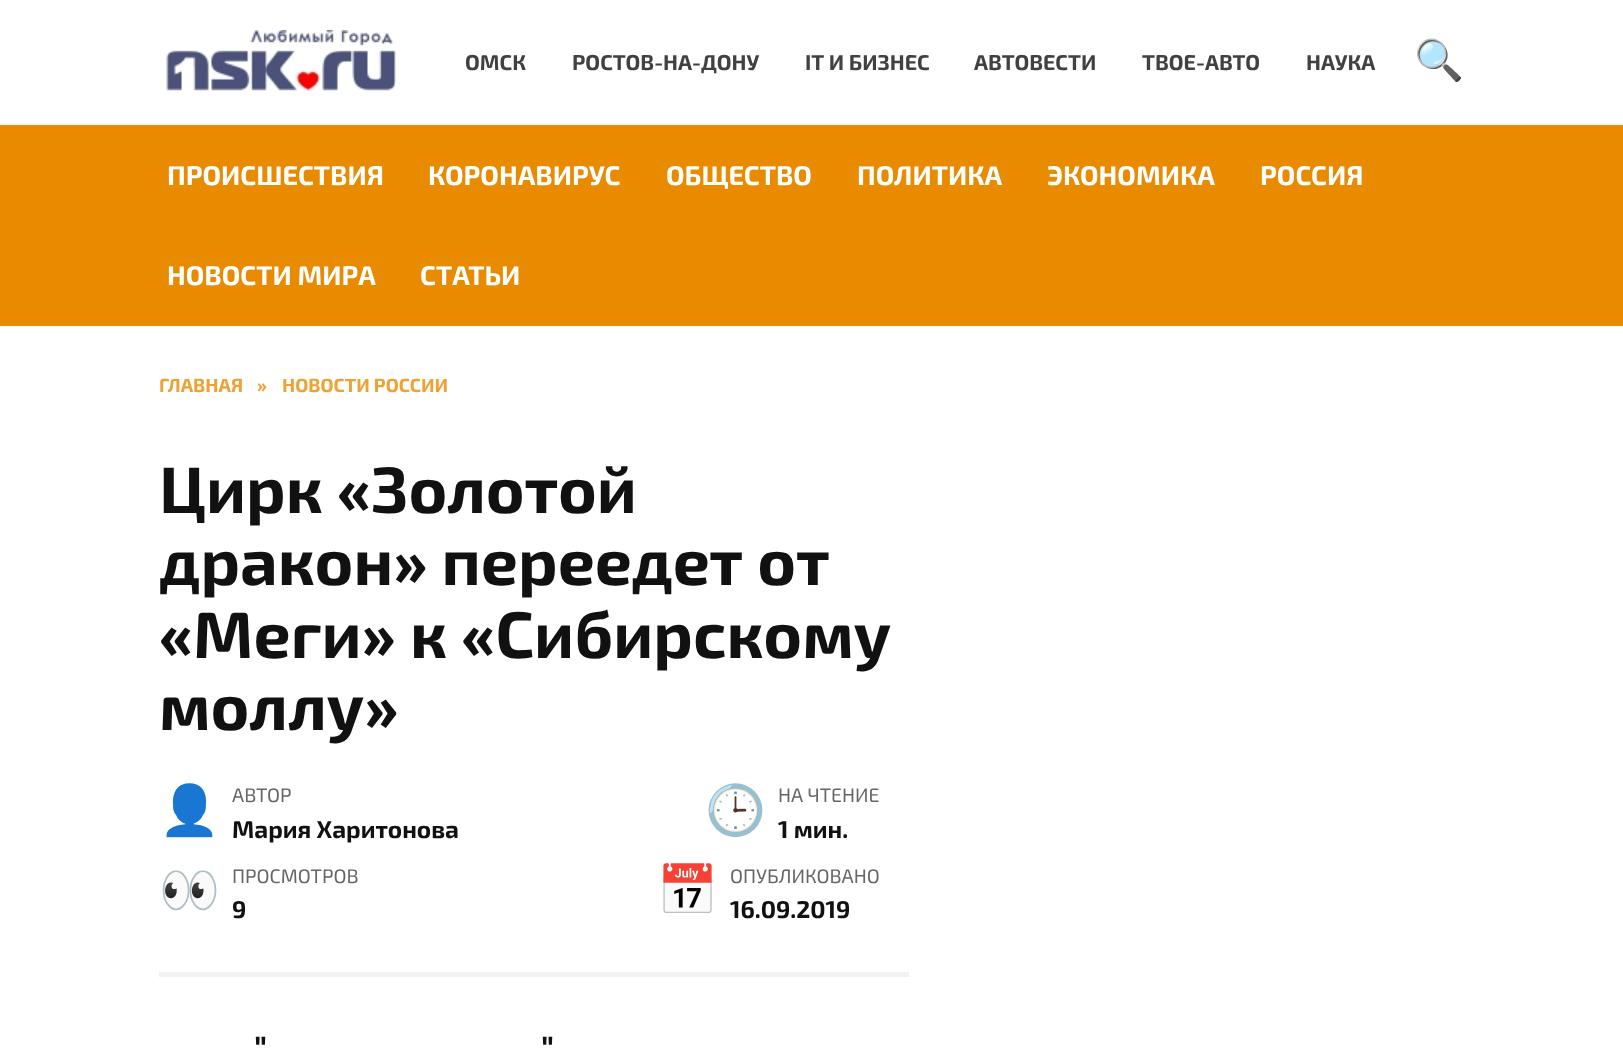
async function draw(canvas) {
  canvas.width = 1623
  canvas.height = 1050
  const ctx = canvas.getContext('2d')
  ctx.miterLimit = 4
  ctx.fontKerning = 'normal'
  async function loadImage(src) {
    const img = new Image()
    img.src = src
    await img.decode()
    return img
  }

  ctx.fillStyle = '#fff'
  ctx.fillRect(0, 0, 1623, 1050)
  ctx.fillStyle = '#f2f5f9'
  ctx.fillRect(0, 123, 1623, 2)
  ctx.drawImage(await loadImage('image0.png'), 166, 30, 230, 62)
  ctx.font = 'bold 21.5px "Exo 2"'
  ctx.fillStyle = '#414141'
  ctx.fillText('ОМСК', 465, 70)
  ctx.fillText('РОСТОВ-НА-ДОНУ', 572, 70)
  ctx.fillText('IT И БИЗНЕС', 805, 70)
  ctx.fillText('АВТОВЕСТИ', 974, 70)
  ctx.fillText('ТВОЕ-АВТО', 1142, 70)
  ctx.fillText('НАУКА', 1306, 70)
  ctx.font = '40px Noto Color Emoji'
  ctx.fillStyle = '#111'
  ctx.fillText('🔍', 1414, 74)
  ctx.fillStyle = '#e88b00'
  ctx.fillRect(0, 125, 1623, 201)
  ctx.font = 'bold 27px "Exo 2"'
  ctx.fillStyle = '#fff'
  ctx.fillText('ПРОИСШЕСТВИЯ', 167, 185)
  ctx.fillText('КОРОНАВИРУС', 428, 185)
  ctx.fillText('ОБЩЕСТВО', 666, 185)
  ctx.fillText('ПОЛИТИКА', 857, 185)
  ctx.fillText('ЭКОНОМИКА', 1047, 185)
  ctx.fillText('РОССИЯ', 1260, 185)
  ctx.fillText('НОВОСТИ МИРА', 167, 285)
  ctx.fillText('СТАТЬИ', 420, 285)
  ctx.font = 'bold 19px "Exo 2"'
  ctx.fillStyle = '#eda233'
  ctx.fillText('ГЛАВНАЯ', 159, 392)
  ctx.fillText('»', 257, 392)
  ctx.fillText('НОВОСТИ РОССИИ', 282, 392)
  ctx.font = 'bold 65.75px "Exo 2"'
  ctx.fillStyle = '#111'
  ctx.fillText('Цирк «Золотой', 159, 513)
  ctx.fillText('дракон» переедет от', 159, 585)
  ctx.fillText('«Меги» к «Сибирскому', 159, 658)
  ctx.fillText('моллу»', 159, 730)
  ctx.fillStyle = '#f2f2f2'
  ctx.fillRect(159, 972, 750, 5)
  ctx.font = '49px Noto Color Emoji'
  ctx.fillStyle = '#e88b00'
  ctx.fillText('👤', 159, 827)
  ctx.font = '19.5px "Exo 2"'
  ctx.fillStyle = '#666'
  ctx.fillText('АВТОР', 232, 802)
  ctx.font = 'bold 24.25px "Exo 2"'
  ctx.fillStyle = '#111'
  ctx.fillText('Мария Харитонова', 232, 838)
  ctx.font = '49px Noto Color Emoji'
  ctx.fillStyle = '#e88b00'
  ctx.fillText('🕒', 705, 827)
  ctx.font = '19.5px "Exo 2"'
  ctx.fillStyle = '#666'
  ctx.fillText('НА ЧТЕНИЕ', 778, 802)
  ctx.font = 'bold 24.25px "Exo 2"'
  ctx.fillStyle = '#111'
  ctx.fillText('1 мин.', 778, 838)
  ctx.font = '49px Noto Color Emoji'
  ctx.fillStyle = '#e88b00'
  ctx.fillText('👀', 159, 907)
  ctx.font = '19.5px "Exo 2"'
  ctx.fillStyle = '#666'
  ctx.fillText('ПРОСМОТРОВ', 232, 883)
  ctx.font = 'bold 24.25px "Exo 2"'
  ctx.fillStyle = '#111'
  ctx.fillText('9', 232, 918)
  ctx.font = '49px Noto Color Emoji'
  ctx.fillStyle = '#e88b00'
  ctx.fillText('📅', 657, 907)
  ctx.font = '19.5px "Exo 2"'
  ctx.fillStyle = '#666'
  ctx.fillText('ОПУБЛИКОВАНО', 730, 883)
  ctx.font = 'bold 24.25px "Exo 2"'
  ctx.fillStyle = '#111'
  ctx.fillText('16.09.2019', 730, 918)
  ctx.font = 'bold 35px "Exo 2"'
  ctx.fillText('"', 254, 1061)
  ctx.fillText('"', 541, 1061)
}

draw(document.querySelector('canvas'))
